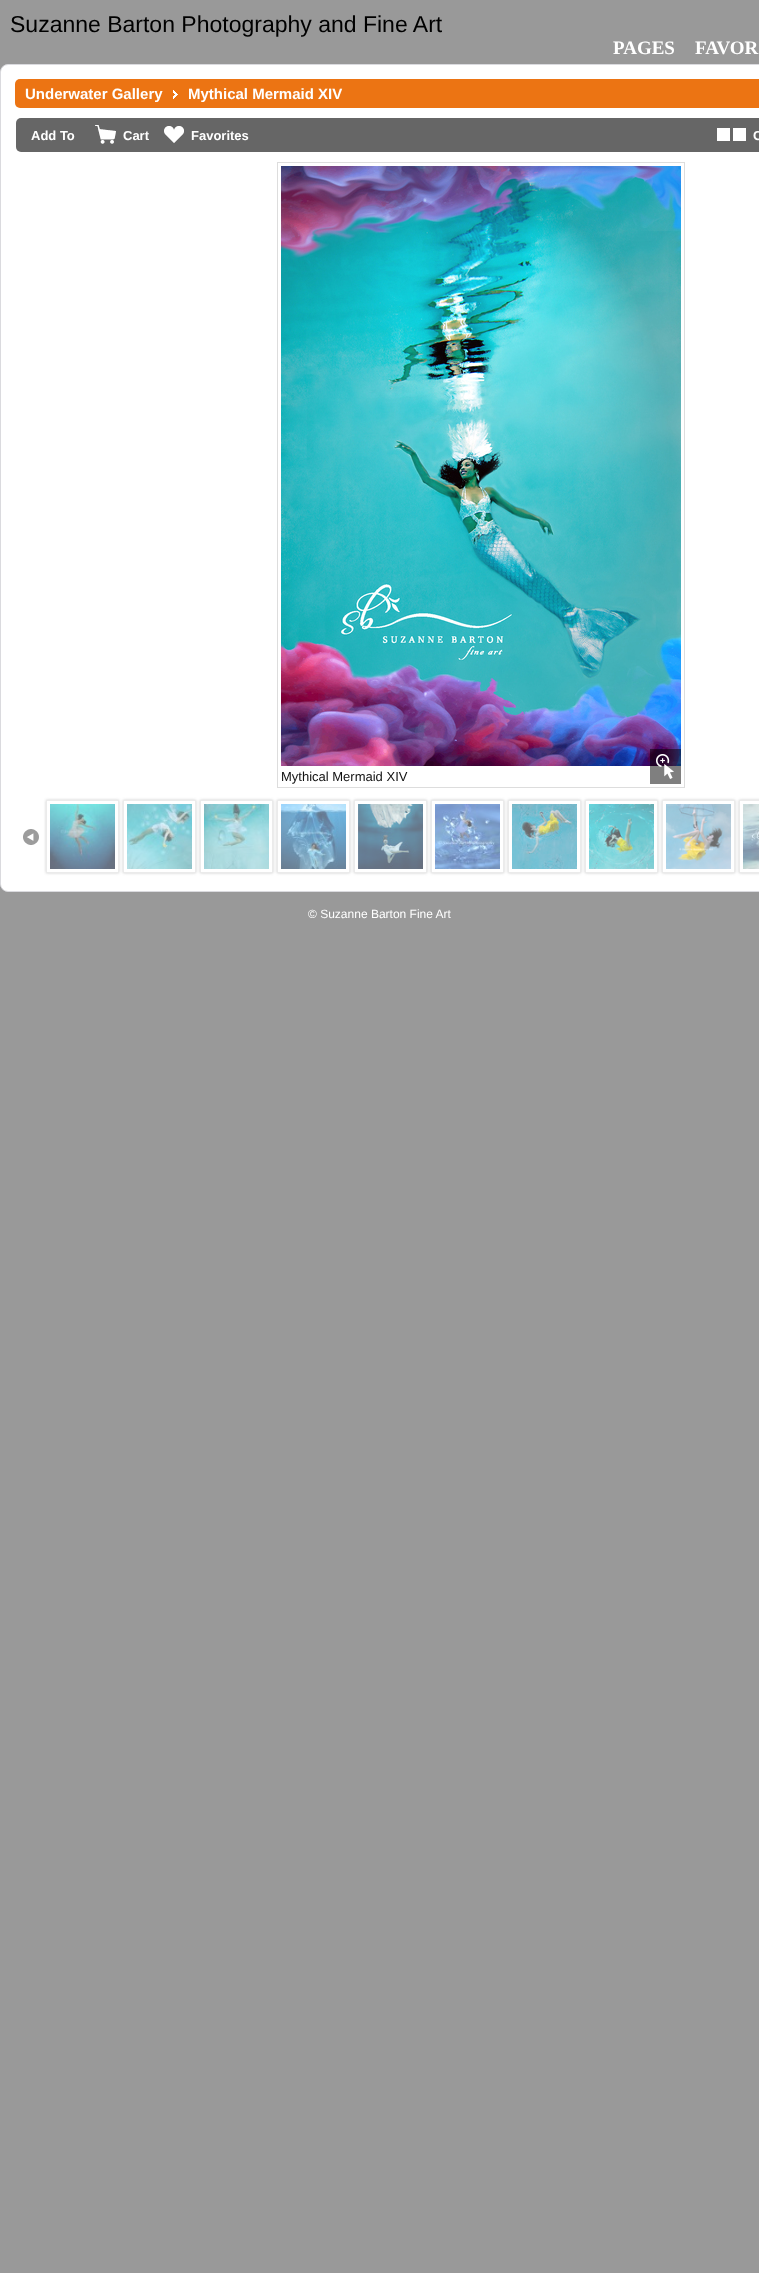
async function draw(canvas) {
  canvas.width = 759
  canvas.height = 2273
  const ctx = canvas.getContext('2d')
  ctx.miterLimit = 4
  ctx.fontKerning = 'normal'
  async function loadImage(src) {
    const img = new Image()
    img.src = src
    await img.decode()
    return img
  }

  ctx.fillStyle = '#999'
  ctx.fillRect(0, 0, 759, 2273)
  ctx.font = '23px Liberation Sans'
  ctx.fillStyle = '#000'
  ctx.fillText('Suzanne Barton Photography and Fine Art', 10, 32)
  ctx.font = 'bold 19px Liberation Serif'
  ctx.fillStyle = '#fff'
  ctx.fillText('PAGES', 613, 54)
  ctx.fillText('FAVOR', 695, 54)
  ctx.beginPath()
  ctx.roundRect(0.5, 64.5, 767, 827, 7.5)
  ctx.fill()
  ctx.strokeStyle = '#dadade'
  ctx.stroke()
  ctx.fillStyle = '#ec7413'
  ctx.beginPath()
  ctx.roundRect(15, 79, 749, 29, 5)
  ctx.fill()
  ctx.font = 'bold 15px Liberation Sans'
  ctx.fillStyle = '#fff'
  ctx.fillText('Underwater Gallery', 25, 99)
  ctx.drawImage(await loadImage('image0.png'), 173, 90, 5, 9)
  ctx.fillText('Mythical Mermaid XIV', 188, 99)
  ctx.fillStyle = '#666'
  ctx.beginPath()
  ctx.roundRect(16, 118, 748, 34, 5)
  ctx.fill()
  ctx.font = 'bold 13px Liberation Sans'
  ctx.fillStyle = '#fff'
  ctx.fillText('Add To', 31, 140)
  ctx.drawImage(await loadImage('image1.png'), 95, 125, 21, 19)
  ctx.fillText('Cart', 123, 140)
  ctx.drawImage(await loadImage('image2.png'), 164, 126, 20, 17)
  ctx.fillText('Favorites', 191, 140)
  ctx.drawImage(await loadImage('image3.png'), 717, 128, 29, 13)
  ctx.fillText('C', 753, 140)
  ctx.strokeStyle = '#ddd'
  ctx.strokeRect(277.5, 162.5, 407, 625)
  ctx.drawImage(await loadImage('image4.png'), 281, 166, 400, 600)
  ctx.font = '13px Liberation Sans'
  ctx.fillStyle = '#111'
  ctx.fillText('Mythical Mermaid XIV', 281, 781)
  ctx.drawImage(await loadImage('image5.png'), 650, 749, 31, 35)
  ctx.drawImage(await loadImage('image6.png'), 23, 829, 16, 16)
  ctx.save()
  ctx.beginPath()
  ctx.moveTo(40, 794)
  ctx.lineTo(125, 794)
  ctx.lineTo(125, 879)
  ctx.lineTo(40, 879)
  ctx.closePath()
  ctx.moveTo(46, 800)
  ctx.lineTo(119, 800)
  ctx.lineTo(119, 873)
  ctx.lineTo(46, 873)
  ctx.closePath()
  ctx.clip('evenodd')
  ctx.fillStyle = '#ccc'
  ctx.filter = 'blur(1.5px)'
  ctx.beginPath()
  ctx.rect(46, 800, 73, 73)
  ctx.fill()
  ctx.filter = 'none'
  ctx.restore()
  ctx.strokeStyle = '#ebebeb'
  ctx.strokeRect(46.5, 800.5, 72, 72)
  ctx.drawImage(await loadImage('image7.png'), 50, 804, 65, 65)
  ctx.save()
  ctx.beginPath()
  ctx.moveTo(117, 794)
  ctx.lineTo(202, 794)
  ctx.lineTo(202, 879)
  ctx.lineTo(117, 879)
  ctx.closePath()
  ctx.moveTo(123, 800)
  ctx.lineTo(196, 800)
  ctx.lineTo(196, 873)
  ctx.lineTo(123, 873)
  ctx.closePath()
  ctx.clip('evenodd')
  ctx.fillStyle = '#aaaaaa99'
  ctx.filter = 'blur(1.5px)'
  ctx.beginPath()
  ctx.rect(123, 800, 73, 73)
  ctx.fill()
  ctx.filter = 'none'
  ctx.restore()
  ctx.strokeRect(123.5, 800.5, 72, 72)
  ctx.drawImage(await loadImage('image8.png'), 127, 804, 65, 65)
  ctx.save()
  ctx.beginPath()
  ctx.moveTo(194, 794)
  ctx.lineTo(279, 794)
  ctx.lineTo(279, 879)
  ctx.lineTo(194, 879)
  ctx.closePath()
  ctx.moveTo(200, 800)
  ctx.lineTo(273, 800)
  ctx.lineTo(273, 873)
  ctx.lineTo(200, 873)
  ctx.closePath()
  ctx.clip('evenodd')
  ctx.fillStyle = '#aaaaaa99'
  ctx.filter = 'blur(1.5px)'
  ctx.beginPath()
  ctx.rect(200, 800, 73, 73)
  ctx.fill()
  ctx.filter = 'none'
  ctx.restore()
  ctx.strokeRect(200.5, 800.5, 72, 72)
  ctx.drawImage(await loadImage('image9.png'), 204, 804, 65, 65)
  ctx.save()
  ctx.beginPath()
  ctx.moveTo(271, 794)
  ctx.lineTo(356, 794)
  ctx.lineTo(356, 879)
  ctx.lineTo(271, 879)
  ctx.closePath()
  ctx.moveTo(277, 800)
  ctx.lineTo(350, 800)
  ctx.lineTo(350, 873)
  ctx.lineTo(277, 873)
  ctx.closePath()
  ctx.clip('evenodd')
  ctx.fillStyle = '#aaaaaa99'
  ctx.filter = 'blur(1.5px)'
  ctx.beginPath()
  ctx.rect(277, 800, 73, 73)
  ctx.fill()
  ctx.filter = 'none'
  ctx.restore()
  ctx.strokeRect(277.5, 800.5, 72, 72)
  ctx.drawImage(await loadImage('image10.png'), 281, 804, 65, 65)
  ctx.save()
  ctx.beginPath()
  ctx.moveTo(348, 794)
  ctx.lineTo(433, 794)
  ctx.lineTo(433, 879)
  ctx.lineTo(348, 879)
  ctx.closePath()
  ctx.moveTo(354, 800)
  ctx.lineTo(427, 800)
  ctx.lineTo(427, 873)
  ctx.lineTo(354, 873)
  ctx.closePath()
  ctx.clip('evenodd')
  ctx.fillStyle = '#aaaaaa99'
  ctx.filter = 'blur(1.5px)'
  ctx.beginPath()
  ctx.rect(354, 800, 73, 73)
  ctx.fill()
  ctx.filter = 'none'
  ctx.restore()
  ctx.strokeRect(354.5, 800.5, 72, 72)
  ctx.drawImage(await loadImage('image11.png'), 358, 804, 65, 65)
  ctx.save()
  ctx.beginPath()
  ctx.moveTo(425, 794)
  ctx.lineTo(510, 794)
  ctx.lineTo(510, 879)
  ctx.lineTo(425, 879)
  ctx.closePath()
  ctx.moveTo(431, 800)
  ctx.lineTo(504, 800)
  ctx.lineTo(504, 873)
  ctx.lineTo(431, 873)
  ctx.closePath()
  ctx.clip('evenodd')
  ctx.fillStyle = '#aaaaaa99'
  ctx.filter = 'blur(1.5px)'
  ctx.beginPath()
  ctx.rect(431, 800, 73, 73)
  ctx.fill()
  ctx.filter = 'none'
  ctx.restore()
  ctx.strokeRect(431.5, 800.5, 72, 72)
  ctx.drawImage(await loadImage('image12.png'), 435, 804, 65, 65)
  ctx.save()
  ctx.beginPath()
  ctx.moveTo(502, 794)
  ctx.lineTo(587, 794)
  ctx.lineTo(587, 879)
  ctx.lineTo(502, 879)
  ctx.closePath()
  ctx.moveTo(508, 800)
  ctx.lineTo(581, 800)
  ctx.lineTo(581, 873)
  ctx.lineTo(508, 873)
  ctx.closePath()
  ctx.clip('evenodd')
  ctx.fillStyle = '#aaaaaa99'
  ctx.filter = 'blur(1.5px)'
  ctx.beginPath()
  ctx.rect(508, 800, 73, 73)
  ctx.fill()
  ctx.filter = 'none'
  ctx.restore()
  ctx.strokeRect(508.5, 800.5, 72, 72)
  ctx.drawImage(await loadImage('image13.png'), 512, 804, 65, 65)
  ctx.save()
  ctx.beginPath()
  ctx.moveTo(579, 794)
  ctx.lineTo(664, 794)
  ctx.lineTo(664, 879)
  ctx.lineTo(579, 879)
  ctx.closePath()
  ctx.moveTo(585, 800)
  ctx.lineTo(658, 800)
  ctx.lineTo(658, 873)
  ctx.lineTo(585, 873)
  ctx.closePath()
  ctx.clip('evenodd')
  ctx.fillStyle = '#aaaaaa99'
  ctx.filter = 'blur(1.5px)'
  ctx.beginPath()
  ctx.rect(585, 800, 73, 73)
  ctx.fill()
  ctx.filter = 'none'
  ctx.restore()
  ctx.strokeRect(585.5, 800.5, 72, 72)
  ctx.drawImage(await loadImage('image14.png'), 589, 804, 65, 65)
  ctx.save()
  ctx.beginPath()
  ctx.moveTo(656, 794)
  ctx.lineTo(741, 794)
  ctx.lineTo(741, 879)
  ctx.lineTo(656, 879)
  ctx.closePath()
  ctx.moveTo(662, 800)
  ctx.lineTo(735, 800)
  ctx.lineTo(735, 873)
  ctx.lineTo(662, 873)
  ctx.closePath()
  ctx.clip('evenodd')
  ctx.fillStyle = '#aaaaaa99'
  ctx.filter = 'blur(1.5px)'
  ctx.beginPath()
  ctx.rect(662, 800, 73, 73)
  ctx.fill()
  ctx.filter = 'none'
  ctx.restore()
  ctx.strokeRect(662.5, 800.5, 72, 72)
  ctx.drawImage(await loadImage('image15.png'), 666, 804, 65, 65)
  ctx.save()
  ctx.beginPath()
  ctx.moveTo(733, 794)
  ctx.lineTo(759, 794)
  ctx.lineTo(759, 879)
  ctx.lineTo(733, 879)
  ctx.closePath()
  ctx.moveTo(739, 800)
  ctx.lineTo(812, 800)
  ctx.lineTo(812, 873)
  ctx.lineTo(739, 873)
  ctx.closePath()
  ctx.clip('evenodd')
  ctx.fillStyle = '#aaaaaa99'
  ctx.filter = 'blur(1.5px)'
  ctx.beginPath()
  ctx.rect(739, 800, 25, 73)
  ctx.fill()
  ctx.filter = 'none'
  ctx.restore()
  ctx.strokeRect(739.5, 800.5, 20, 72)
  ctx.drawImage(await loadImage('image16.png'), 743, 804, 16, 65)
  ctx.font = '12px Liberation Sans'
  ctx.fillStyle = '#fff'
  ctx.fillText('© Suzanne Barton Fine Art', 308, 918)
}

draw(document.querySelector('canvas'))
